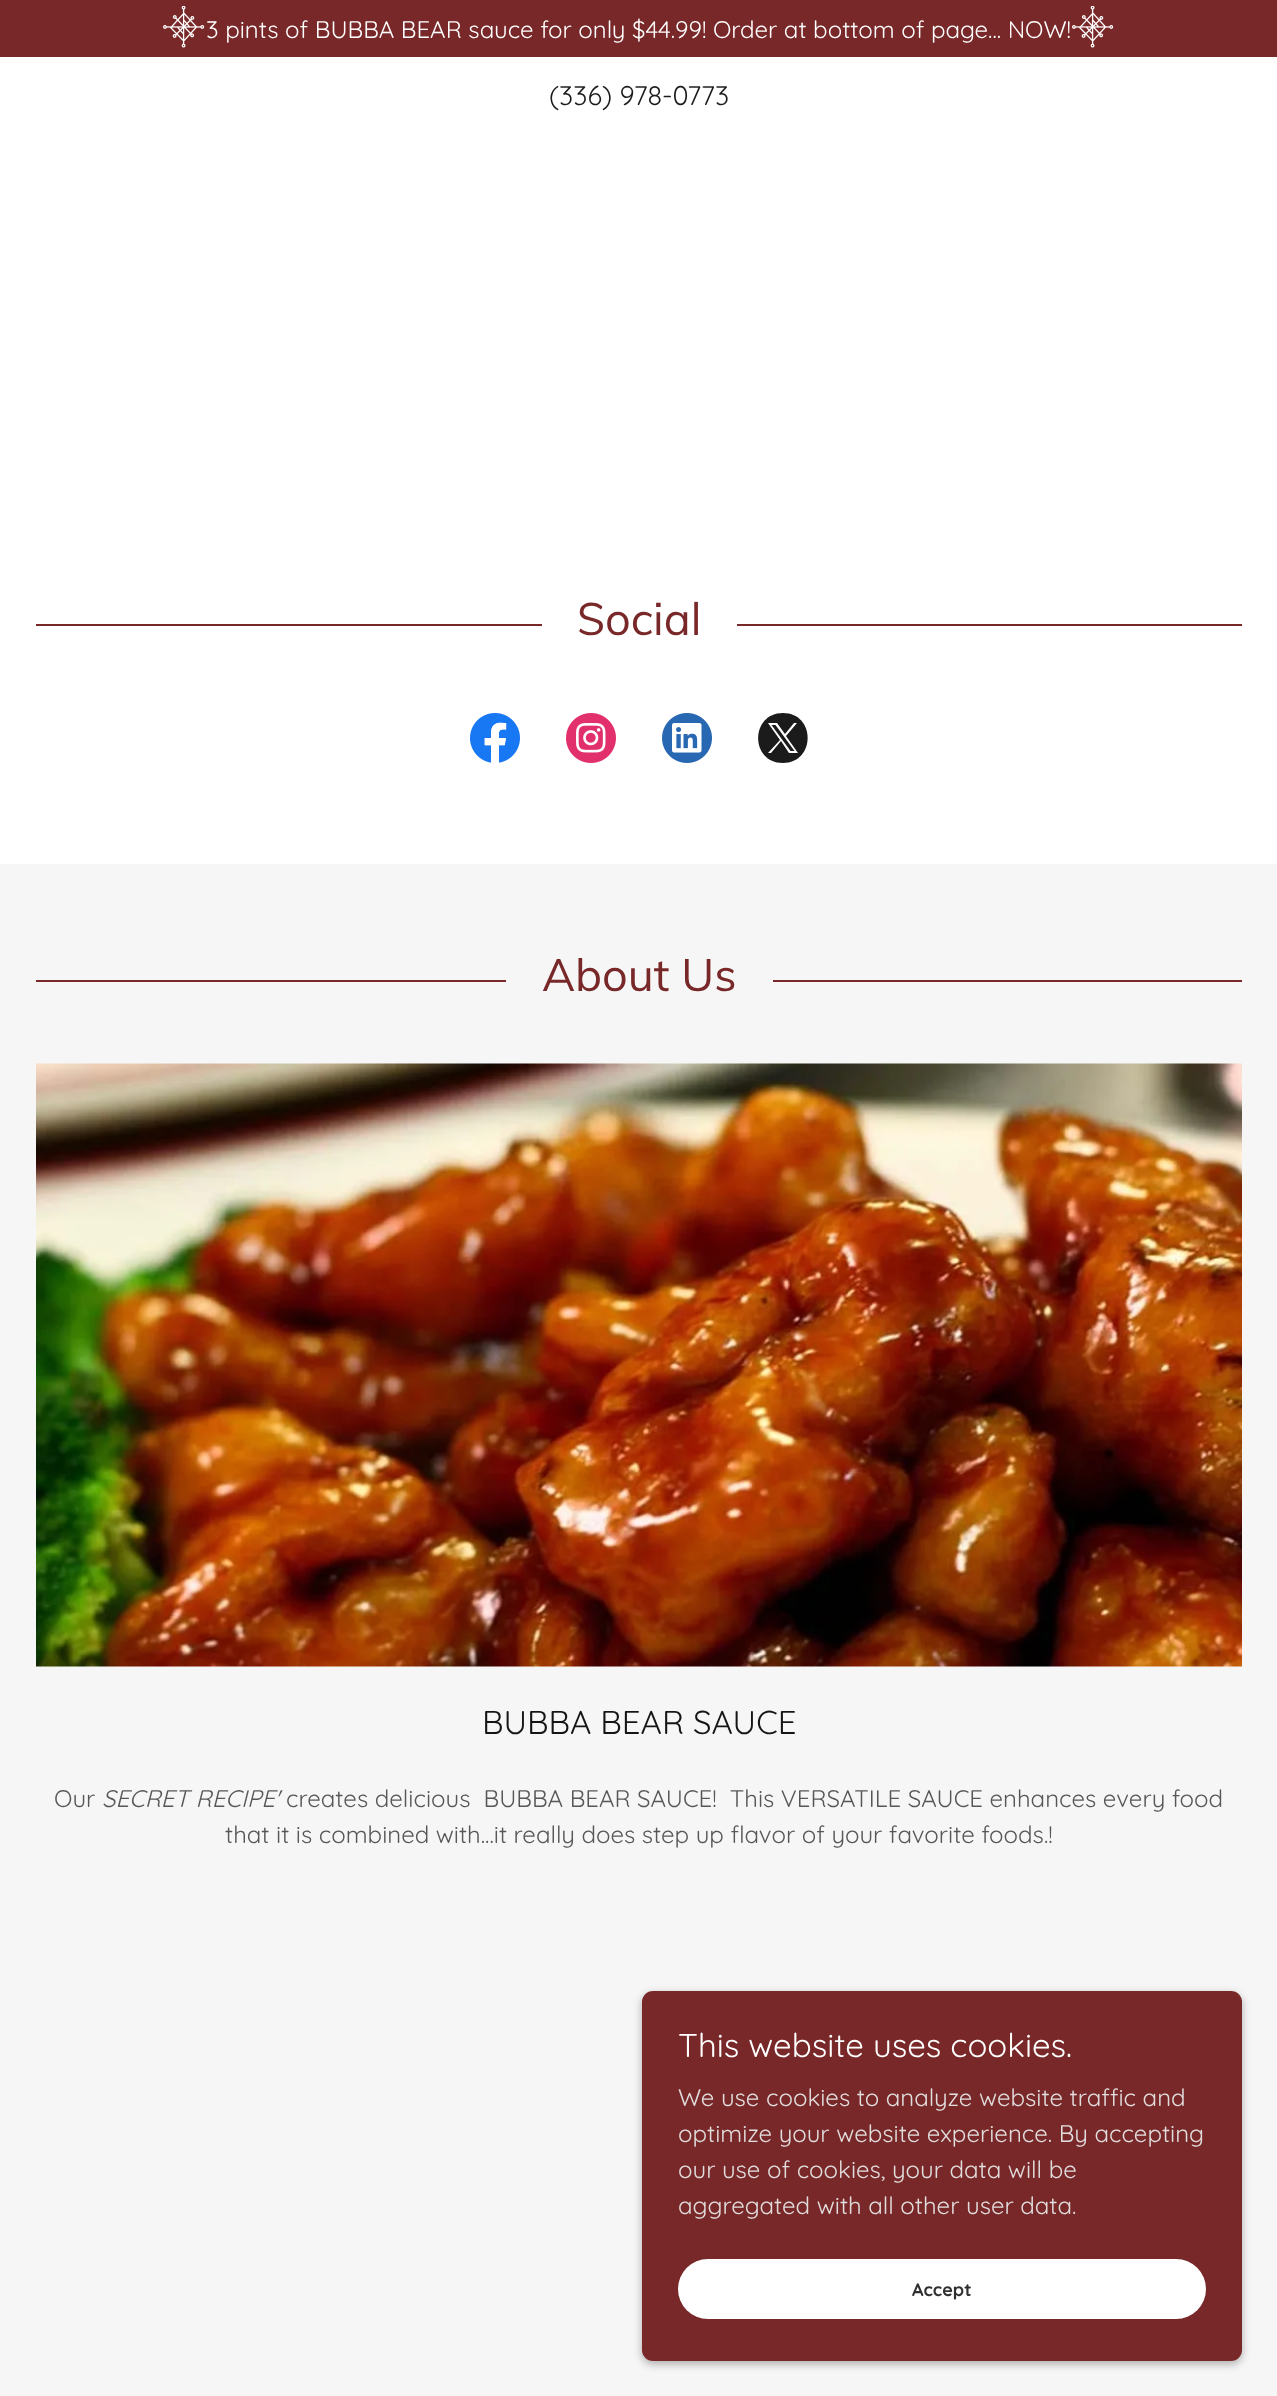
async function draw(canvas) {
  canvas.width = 1277
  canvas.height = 2396
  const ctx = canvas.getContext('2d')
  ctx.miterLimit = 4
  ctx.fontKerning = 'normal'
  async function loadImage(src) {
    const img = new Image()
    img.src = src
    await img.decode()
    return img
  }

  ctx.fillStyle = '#f6f6f6'
  ctx.fillRect(0, 0, 1277, 2396)
  ctx.fillStyle = '#fff'
  ctx.fillRect(0, 57, 1277, 807)
  ctx.fillStyle = '#782828'
  ctx.fillRect(0, 0, 1277, 57)
  ctx.drawImage(await loadImage('image0.png'), 163, 6, 42, 42)
  ctx.font = '24px Quicksand'
  ctx.fillStyle = '#fff'
  ctx.fillText('3 pints of BUBBA BEAR sauce for only $44.99! Order at bottom of page... NOW!', 206, 38)
  ctx.drawImage(await loadImage('image0.png'), 1072, 6, 42, 42)
  ctx.font = '27px Quicksand'
  ctx.fillStyle = '#1b1b1b'
  ctx.fillText('(336) 978-0773', 549, 105)
  ctx.fillStyle = '#782828'
  ctx.fillRect(36, 624, 506, 2)
  ctx.font = '45px Muli'
  ctx.fillText('Social', 577, 635)
  ctx.fillRect(737, 624, 505, 2)
  ctx.drawImage(await loadImage('image1.png'), 470, 713, 50, 50)
  ctx.drawImage(await loadImage('image2.png'), 566, 713, 50, 50)
  ctx.drawImage(await loadImage('image3.png'), 662, 713, 50, 50)
  ctx.fillStyle = '#1b1b1b'
  ctx.beginPath()
  ctx.moveTo(790.5, 751)
  ctx.lineTo(771.5, 725)
  ctx.lineTo(775.5, 725)
  ctx.lineTo(794.5, 751)
  ctx.closePath()
  ctx.fill()
  ctx.beginPath()
  ctx.moveTo(783, 763)
  ctx.bezierCurveTo(816, 763, 816, 713, 783, 713)
  ctx.bezierCurveTo(750, 713, 750, 763, 783, 763)
  ctx.closePath()
  ctx.moveTo(780, 740)
  ctx.lineTo(768, 723)
  ctx.lineTo(777, 723)
  ctx.lineTo(785, 734)
  ctx.lineTo(794, 723)
  ctx.lineTo(797, 723)
  ctx.lineTo(786, 736)
  ctx.lineTo(798, 753)
  ctx.lineTo(789, 753)
  ctx.lineTo(781, 741)
  ctx.lineTo(771, 753)
  ctx.lineTo(768, 753)
  ctx.closePath()
  ctx.fill('evenodd')
  ctx.fillStyle = '#782828'
  ctx.fillRect(36, 980, 470, 2)
  ctx.fillText('About Us', 542, 991)
  ctx.fillRect(773, 980, 469, 2)
  ctx.drawImage(await loadImage('image4.png'), 36, 1063, 1206, 604)
  ctx.font = '33px Quicksand'
  ctx.fillStyle = '#151515'
  ctx.fillText('BUBBA BEAR SAUCE', 482, 1734)
  ctx.font = '24px Quicksand'
  ctx.fillStyle = '#575757'
  ctx.fillText('Our', 54, 1807)
  ctx.font = 'italic 24px Quicksand'
  ctx.fillText('SECRET RECIPE\'', 102, 1807)
  ctx.font = '24px Quicksand'
  ctx.fillText('creates delicious  BUBBA BEAR SAUCE!  This VERSATILE SAUCE enhances every food', 286, 1807)
  ctx.fillText('that it is combined with...it really does step up flavor of your favorite foods.!', 225, 1843)
  ctx.fillStyle = '#0000004d'
  ctx.filter = 'blur(4.5px)'
  ctx.beginPath()
  ctx.roundRect(642, 1994, 600, 370, 11)
  ctx.fill()
  ctx.filter = 'none'
  ctx.fillStyle = '#782828'
  ctx.beginPath()
  ctx.roundRect(642, 1991, 600, 370, 11)
  ctx.fill()
  ctx.font = '33px Quicksand'
  ctx.fillStyle = '#fff'
  ctx.fillText('This website uses cookies.', 678, 2057)
  ctx.font = '24px Quicksand'
  ctx.fillStyle = '#e2dddd'
  ctx.fillText('We use cookies to analyze website traffic and', 678, 2106)
  ctx.fillText('optimize your website experience. By accepting', 678, 2142)
  ctx.fillText('our use of cookies, your data will be', 678, 2178)
  ctx.fillText('aggregated with all other user data.', 678, 2214)
  ctx.fillStyle = '#fff'
  ctx.beginPath()
  ctx.roundRect(678, 2259, 528, 60, 30)
  ctx.fill()
  ctx.font = 'bold 18px Quicksand'
  ctx.fillStyle = '#303030'
  ctx.fillText('Accept', 912, 2296)
}

draw(document.querySelector('canvas'))
